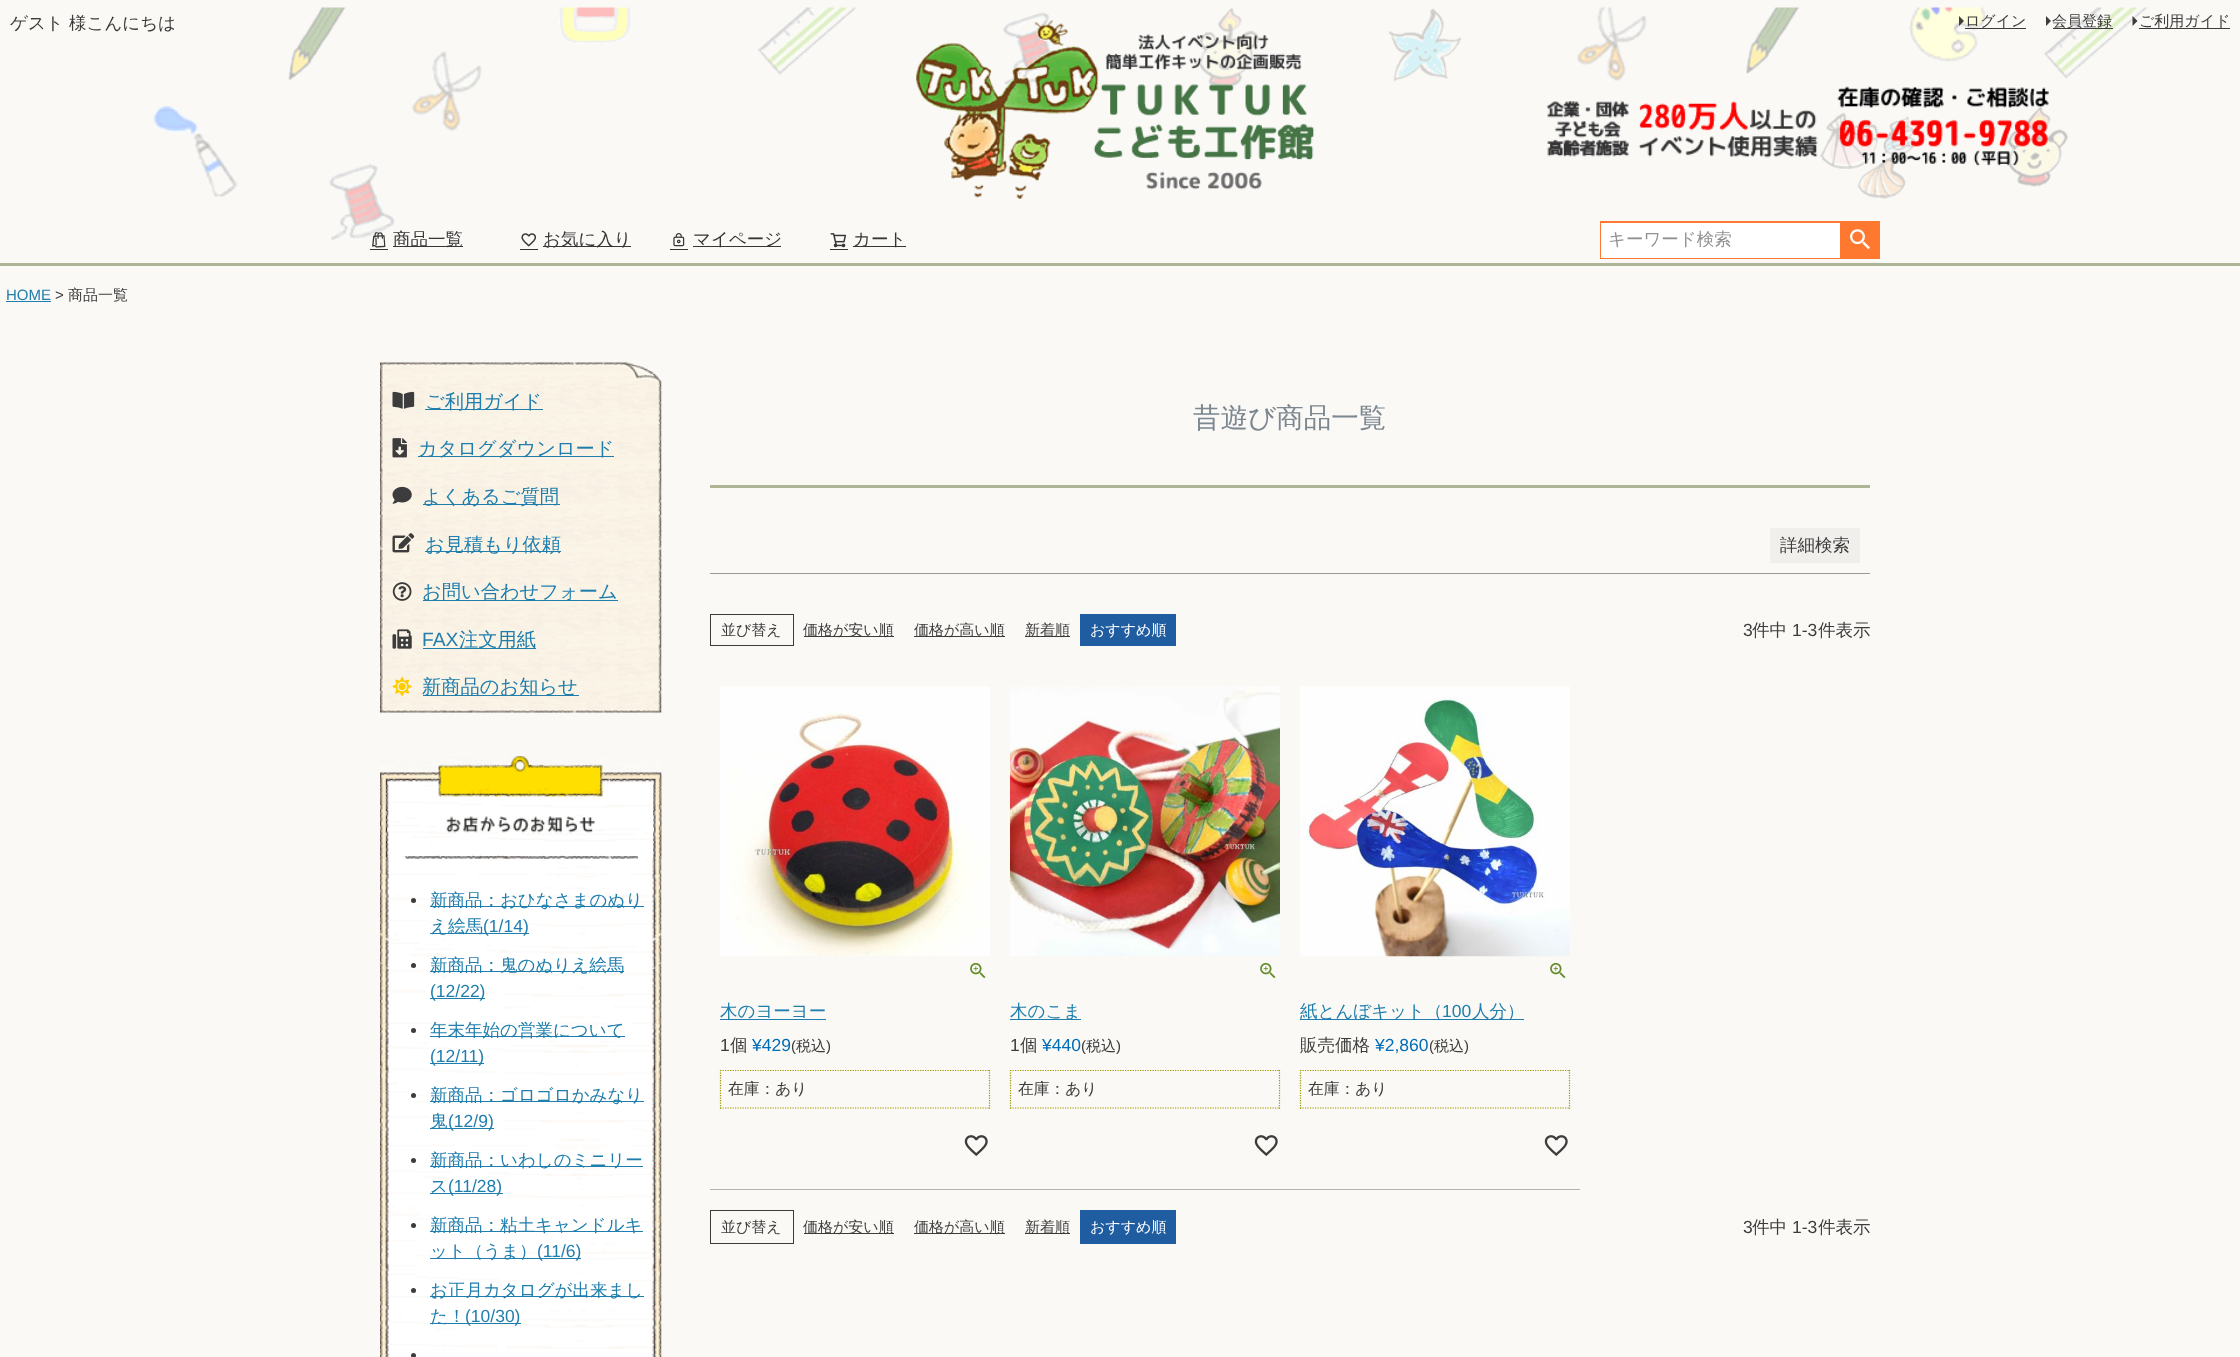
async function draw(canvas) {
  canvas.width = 2240
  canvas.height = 1357
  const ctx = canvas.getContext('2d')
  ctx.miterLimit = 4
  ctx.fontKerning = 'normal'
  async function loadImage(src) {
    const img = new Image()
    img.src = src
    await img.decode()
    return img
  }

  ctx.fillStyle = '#faf9f6'
  ctx.fillRect(0, 0, 2240, 1357)
  ctx.drawImage(await loadImage('image0.png'), 153, 7, 1995, 233)
  ctx.font = '500 17.5px WenQuanYi Zen Hei'
  ctx.fillStyle = '#3c3c3c'
  ctx.fillText('ゲスト 様こんにちは', 10, 29)
  ctx.drawImage(await loadImage('image1.png'), 916, 20, 398, 179)
  ctx.beginPath()
  ctx.moveTo(1959, 26)
  ctx.lineTo(1959, 16)
  ctx.lineTo(1964, 21)
  ctx.closePath()
  ctx.fill()
  ctx.font = '500 15px WenQuanYi Zen Hei'
  ctx.fillText('ログイン', 1965, 26)
  ctx.fillRect(1965, 28, 61, 1)
  ctx.beginPath()
  ctx.moveTo(2046, 26)
  ctx.lineTo(2046, 16)
  ctx.lineTo(2051, 21)
  ctx.closePath()
  ctx.fill()
  ctx.fillRect(2053, 28, 60, 1)
  ctx.fillText('会員登録', 2052, 26)
  ctx.beginPath()
  ctx.moveTo(2132.5, 26)
  ctx.lineTo(2132.5, 16)
  ctx.lineTo(2137.5, 21)
  ctx.closePath()
  ctx.fill()
  ctx.fillRect(2139, 28, 91, 1)
  ctx.fillText('ご利用ガイド', 2139, 26)
  ctx.drawImage(await loadImage('image2.png'), 1546, 86, 503, 80)
  ctx.fillStyle = '#aeb597'
  ctx.fillRect(0, 263, 2240, 3)
  ctx.drawImage(await loadImage('image3.png'), 372, 232, 14, 16)
  ctx.fillStyle = '#363636'
  ctx.fillRect(370, 249, 18, 1)
  ctx.fillRect(393, 246, 70, 1)
  ctx.font = '500 17.5px WenQuanYi Zen Hei'
  ctx.fillText('商品一覧', 393, 245)
  ctx.drawImage(await loadImage('image4.png'), 521, 233, 15, 14)
  ctx.fillRect(520, 249, 18, 1)
  ctx.fillRect(543, 246, 88, 1)
  ctx.fillText('お気に入り', 543, 245)
  ctx.drawImage(await loadImage('image5.png'), 673, 233, 12, 14)
  ctx.fillRect(670, 249, 18, 1)
  ctx.fillRect(693, 246, 88, 1)
  ctx.fillText('マイページ', 693, 245)
  ctx.drawImage(await loadImage('image6.png'), 830, 233, 17, 15)
  ctx.fillRect(830, 249, 18, 1)
  ctx.fillRect(853, 246, 53, 1)
  ctx.fillText('カート', 853, 245)
  ctx.fillStyle = '#ff782f'
  ctx.fillRect(1600, 221, 280, 38)
  ctx.fillStyle = '#fff'
  ctx.fillRect(1601, 223, 239, 35)
  ctx.fillStyle = '#919191'
  ctx.fillText('キーワード検索', 1608, 245)
  ctx.drawImage(await loadImage('image7.png'), 1850, 229, 20, 21)
  ctx.font = '15px Liberation Sans'
  ctx.fillStyle = '#1f7ead'
  ctx.fillText('HOME', 6, 300)
  ctx.fillRect(6, 301, 45, 1)
  ctx.fillStyle = '#3c3c3c'
  ctx.fillText('>', 55, 300)
  ctx.font = '500 15px WenQuanYi Zen Hei'
  ctx.fillText('商品一覧', 68, 300)
  ctx.drawImage(await loadImage('image8.png'), 380, 362, 282, 351)
  ctx.drawImage(await loadImage('image9.png'), 392, 391, 23, 18)
  ctx.fillStyle = '#1f7ead'
  ctx.fillRect(425, 409, 118, 1)
  ctx.font = '500 19.25px WenQuanYi Zen Hei'
  ctx.fillText('ご利用ガイド', 425, 408)
  ctx.drawImage(await loadImage('image10.png'), 392, 438, 15, 20)
  ctx.fillRect(418, 456, 196, 1)
  ctx.fillText('カタログダウンロード', 418, 455)
  ctx.drawImage(await loadImage('image11.png'), 392, 486, 20, 18)
  ctx.fillRect(423, 504, 137, 1)
  ctx.fillText('よくあるご質問', 422, 503)
  ctx.drawImage(await loadImage('image12.png'), 392, 533, 23, 20)
  ctx.fillRect(425, 551, 136, 1)
  ctx.fillText('お見積もり依頼', 425, 551)
  ctx.drawImage(await loadImage('image13.png'), 392, 582, 20, 19)
  ctx.fillRect(423, 600, 195, 1)
  ctx.fillText('お問い合わせフォーム', 422, 598)
  ctx.drawImage(await loadImage('image14.png'), 392, 629, 20, 20)
  ctx.font = '19.25px Liberation Sans'
  ctx.fillText('FAX', 422, 646)
  ctx.fillRect(423, 648, 113, 1)
  ctx.font = '500 19.25px WenQuanYi Zen Hei'
  ctx.fillText('注文用紙', 459, 646)
  ctx.drawImage(await loadImage('image15.png'), 392, 676, 20, 21)
  ctx.fillRect(423, 695, 156, 1)
  ctx.fillText('新商品のお知らせ', 422, 693)
  ctx.drawImage(await loadImage('image16.png'), 380, 775, 282, 582)
  ctx.drawImage(await loadImage('image17.png'), 380, 756, 282, 103)
  ctx.fillStyle = '#3c3c3c'
  ctx.beginPath()
  ctx.arc(413.5, 900.5, 2.5, 0, 2 * Math.PI)
  ctx.fill()
  ctx.fillStyle = '#1f7ead'
  ctx.fillRect(430, 906, 214, 1)
  ctx.font = '500 17.5px WenQuanYi Zen Hei'
  ctx.fillText('新商品：おひなさまのぬり', 430, 906)
  ctx.fillRect(430, 933, 99, 1)
  ctx.fillText('え絵馬', 430, 932)
  ctx.font = '17.5px Liberation Sans'
  ctx.fillText('(1/14)', 483, 932)
  ctx.fillStyle = '#3c3c3c'
  ctx.beginPath()
  ctx.arc(413.5, 965.5, 2.5, 0, 2 * Math.PI)
  ctx.fill()
  ctx.fillStyle = '#1f7ead'
  ctx.fillRect(430, 971, 194, 1)
  ctx.font = '500 17.5px WenQuanYi Zen Hei'
  ctx.fillText('新商品：鬼のぬりえ絵馬', 430, 971)
  ctx.fillRect(430, 998, 55, 1)
  ctx.font = '17.5px Liberation Sans'
  ctx.fillText('(12/22)', 430, 997)
  ctx.fillStyle = '#3c3c3c'
  ctx.beginPath()
  ctx.arc(413.5, 1030.5, 2.5, 0, 2 * Math.PI)
  ctx.fill()
  ctx.fillStyle = '#1f7ead'
  ctx.fillRect(430, 1036, 195, 1)
  ctx.font = '500 17.5px WenQuanYi Zen Hei'
  ctx.fillText('年末年始の営業について', 430, 1036)
  ctx.fillRect(430, 1063, 54, 1)
  ctx.font = '17.5px Liberation Sans'
  ctx.fillText('(12/11)', 430, 1062)
  ctx.fillStyle = '#3c3c3c'
  ctx.beginPath()
  ctx.arc(413.5, 1095.5, 2.5, 0, 2 * Math.PI)
  ctx.fill()
  ctx.fillStyle = '#1f7ead'
  ctx.fillRect(430, 1101, 214, 1)
  ctx.font = '500 17.5px WenQuanYi Zen Hei'
  ctx.fillText('新商品：ゴロゴロかみなり', 430, 1101)
  ctx.fillRect(430, 1128, 64, 1)
  ctx.fillText('鬼', 430, 1127)
  ctx.font = '17.5px Liberation Sans'
  ctx.fillText('(12/9)', 448, 1127)
  ctx.fillStyle = '#3c3c3c'
  ctx.beginPath()
  ctx.arc(413.5, 1160.5, 2.5, 0, 2 * Math.PI)
  ctx.fill()
  ctx.fillStyle = '#1f7ead'
  ctx.fillRect(430, 1166, 213, 1)
  ctx.font = '500 17.5px WenQuanYi Zen Hei'
  ctx.fillText('新商品：いわしのミニリー', 430, 1166)
  ctx.fillText('ス', 430, 1192)
  ctx.fillRect(430, 1193, 73, 1)
  ctx.font = '17.5px Liberation Sans'
  ctx.fillText('(11/28)', 448, 1192)
  ctx.fillStyle = '#3c3c3c'
  ctx.beginPath()
  ctx.arc(413.5, 1225.5, 2.5, 0, 2 * Math.PI)
  ctx.fill()
  ctx.fillStyle = '#1f7ead'
  ctx.fillRect(430, 1231, 213, 1)
  ctx.font = '500 17.5px WenQuanYi Zen Hei'
  ctx.fillText('新商品：粘土キャンドルキ', 430, 1231)
  ctx.fillRect(430, 1258, 151, 1)
  ctx.fillText('ット（うま）', 430, 1257)
  ctx.font = '17.5px Liberation Sans'
  ctx.fillText('(11/6)', 537, 1257)
  ctx.fillStyle = '#3c3c3c'
  ctx.beginPath()
  ctx.arc(413.5, 1290.5, 2.5, 0, 2 * Math.PI)
  ctx.fill()
  ctx.fillStyle = '#1f7ead'
  ctx.fillRect(430, 1296, 214, 1)
  ctx.font = '500 17.5px WenQuanYi Zen Hei'
  ctx.fillText('お正月カタログが出来まし', 430, 1296)
  ctx.fillRect(430, 1323, 91, 1)
  ctx.fillText('た！', 430, 1322)
  ctx.font = '17.5px Liberation Sans'
  ctx.fillText('(10/30)', 465, 1322)
  ctx.fillStyle = '#3c3c3c'
  ctx.beginPath()
  ctx.arc(413.5, 1355.5, 2.5, 0, 2 * Math.PI)
  ctx.fill()
  ctx.fillStyle = '#aeb597'
  ctx.fillRect(710, 485, 1160, 3)
  ctx.font = '500 27.5px WenQuanYi Zen Hei'
  ctx.fillStyle = '#7c8790'
  ctx.fillText('昔遊び商品一覧', 1193, 427)
  ctx.fillStyle = '#999'
  ctx.fillRect(710, 573, 1160, 1)
  ctx.fillStyle = '#f0efec'
  ctx.fillRect(1770, 528, 90, 35)
  ctx.font = '500 17.5px WenQuanYi Zen Hei'
  ctx.fillStyle = '#3c3c3c'
  ctx.fillText('詳細検索', 1780, 551)
  ctx.strokeStyle = '#3c3c3c'
  ctx.strokeRect(710.5, 614.5, 83, 31)
  ctx.font = '500 15px WenQuanYi Zen Hei'
  ctx.fillText('並び替え', 721, 635)
  ctx.fillRect(804, 636, 90, 1)
  ctx.fillText('価格が安い順', 803, 635)
  ctx.fillRect(914, 636, 91, 1)
  ctx.fillText('価格が高い順', 914, 635)
  ctx.fillRect(1025, 636, 45, 1)
  ctx.fillText('新着順', 1025, 635)
  ctx.fillStyle = '#1f5da0'
  ctx.fillRect(1080, 614, 96, 32)
  ctx.fillStyle = '#fff'
  ctx.fillText('おすすめ順', 1090, 635)
  ctx.font = '17.5px Liberation Sans'
  ctx.fillStyle = '#3c3c3c'
  ctx.fillText('3', 1743, 636)
  ctx.font = '500 17.5px WenQuanYi Zen Hei'
  ctx.fillText('件中', 1752, 636)
  ctx.font = '17.5px Liberation Sans'
  ctx.fillText('1-3', 1792, 636)
  ctx.font = '500 17.5px WenQuanYi Zen Hei'
  ctx.fillText('件表示', 1818, 636)
  ctx.fillStyle = '#b2b2b2'
  ctx.fillRect(710, 1189, 870, 1)
  ctx.drawImage(await loadImage('image18.png'), 720, 686, 270, 270)
  ctx.drawImage(await loadImage('image19.png'), 970, 962, 16, 17)
  ctx.fillStyle = '#1f7ead'
  ctx.fillRect(720, 1019, 106, 1)
  ctx.fillText('木のヨーヨー', 720, 1017)
  ctx.font = '17.5px Liberation Sans'
  ctx.fillStyle = '#3c3c3c'
  ctx.fillText('1', 720, 1051)
  ctx.font = '500 17.5px WenQuanYi Zen Hei'
  ctx.fillText('個', 730, 1051)
  ctx.font = '17.5px Liberation Sans'
  ctx.fillStyle = '#006db8'
  ctx.fillText('¥429', 752, 1051)
  ctx.font = '15px Liberation Sans'
  ctx.fillStyle = '#3c3c3c'
  ctx.fillText('(', 791, 1051)
  ctx.font = '500 15px WenQuanYi Zen Hei'
  ctx.fillText('税込', 796, 1051)
  ctx.font = '15px Liberation Sans'
  ctx.fillText(')', 826, 1051)
  ctx.beginPath()
  ctx.moveTo(720, 1070.5)
  ctx.lineTo(990, 1070.5)
  ctx.strokeStyle = '#990'
  ctx.lineWidth = 1.2
  ctx.setLineDash([1.25, 1.25])
  ctx.stroke()
  ctx.beginPath()
  ctx.moveTo(989.5, 1070)
  ctx.lineTo(989.5, 1109)
  ctx.stroke()
  ctx.beginPath()
  ctx.moveTo(720, 1108)
  ctx.lineTo(990, 1108)
  ctx.stroke()
  ctx.beginPath()
  ctx.moveTo(720.5, 1070)
  ctx.lineTo(720.5, 1109)
  ctx.stroke()
  ctx.font = '500 15.75px WenQuanYi Zen Hei'
  ctx.fillText('在庫：あり', 728, 1094)
  ctx.drawImage(await loadImage('image20.png'), 964, 1135, 24, 21)
  ctx.drawImage(await loadImage('image21.png'), 1010, 686, 270, 270)
  ctx.drawImage(await loadImage('image19.png'), 1260, 962, 16, 17)
  ctx.fillStyle = '#1f7ead'
  ctx.fillRect(1010, 1019, 71, 1)
  ctx.font = '500 17.5px WenQuanYi Zen Hei'
  ctx.fillText('木のこま', 1010, 1017)
  ctx.font = '17.5px Liberation Sans'
  ctx.fillStyle = '#3c3c3c'
  ctx.fillText('1', 1010, 1051)
  ctx.font = '500 17.5px WenQuanYi Zen Hei'
  ctx.fillText('個', 1020, 1051)
  ctx.font = '17.5px Liberation Sans'
  ctx.fillStyle = '#006db8'
  ctx.fillText('¥440', 1042, 1051)
  ctx.font = '15px Liberation Sans'
  ctx.fillStyle = '#3c3c3c'
  ctx.fillText('(', 1081, 1051)
  ctx.font = '500 15px WenQuanYi Zen Hei'
  ctx.fillText('税込', 1086, 1051)
  ctx.font = '15px Liberation Sans'
  ctx.fillText(')', 1116, 1051)
  ctx.beginPath()
  ctx.moveTo(1010, 1070.5)
  ctx.lineTo(1280, 1070.5)
  ctx.stroke()
  ctx.beginPath()
  ctx.moveTo(1279.5, 1070)
  ctx.lineTo(1279.5, 1109)
  ctx.stroke()
  ctx.beginPath()
  ctx.moveTo(1010, 1108)
  ctx.lineTo(1280, 1108)
  ctx.stroke()
  ctx.beginPath()
  ctx.moveTo(1010.5, 1070)
  ctx.lineTo(1010.5, 1109)
  ctx.stroke()
  ctx.font = '500 15.75px WenQuanYi Zen Hei'
  ctx.fillText('在庫：あり', 1018, 1094)
  ctx.drawImage(await loadImage('image20.png'), 1254, 1135, 24, 21)
  ctx.drawImage(await loadImage('image22.png'), 1300, 686, 270, 271)
  ctx.drawImage(await loadImage('image19.png'), 1550, 962, 16, 17)
  ctx.fillStyle = '#1f7ead'
  ctx.fillRect(1300, 1019, 224, 1)
  ctx.font = '500 17.5px WenQuanYi Zen Hei'
  ctx.fillText('紙とんぼキット（', 1300, 1017)
  ctx.font = '17.5px Liberation Sans'
  ctx.fillText('100', 1442, 1017)
  ctx.font = '500 17.5px WenQuanYi Zen Hei'
  ctx.fillText('人分）', 1472, 1017)
  ctx.fillStyle = '#3c3c3c'
  ctx.fillText('販売価格', 1300, 1051)
  ctx.font = '17.5px Liberation Sans'
  ctx.fillStyle = '#006db8'
  ctx.fillText('¥2,860', 1375, 1051)
  ctx.font = '15px Liberation Sans'
  ctx.fillStyle = '#3c3c3c'
  ctx.fillText('(', 1429, 1051)
  ctx.font = '500 15px WenQuanYi Zen Hei'
  ctx.fillText('税込', 1434, 1051)
  ctx.font = '15px Liberation Sans'
  ctx.fillText(')', 1464, 1051)
  ctx.beginPath()
  ctx.moveTo(1300, 1070.5)
  ctx.lineTo(1570, 1070.5)
  ctx.stroke()
  ctx.beginPath()
  ctx.moveTo(1569.5, 1070)
  ctx.lineTo(1569.5, 1109)
  ctx.stroke()
  ctx.beginPath()
  ctx.moveTo(1300, 1108)
  ctx.lineTo(1570, 1108)
  ctx.stroke()
  ctx.beginPath()
  ctx.moveTo(1300.5, 1070)
  ctx.lineTo(1300.5, 1109)
  ctx.stroke()
  ctx.font = '500 15.75px WenQuanYi Zen Hei'
  ctx.fillText('在庫：あり', 1308, 1094)
  ctx.drawImage(await loadImage('image20.png'), 1544, 1135, 24, 21)
  ctx.strokeStyle = '#3c3c3c'
  ctx.lineWidth = 1
  ctx.setLineDash([])
  ctx.strokeRect(710.5, 1210.5, 83, 33)
  ctx.font = '500 15px WenQuanYi Zen Hei'
  ctx.fillText('並び替え', 721, 1232)
  ctx.fillRect(804, 1233, 90, 1)
  ctx.fillText('価格が安い順', 803, 1232)
  ctx.fillRect(914, 1233, 91, 1)
  ctx.fillText('価格が高い順', 914, 1232)
  ctx.fillRect(1025, 1233, 45, 1)
  ctx.fillText('新着順', 1025, 1232)
  ctx.fillStyle = '#1f5da0'
  ctx.fillRect(1080, 1210, 96, 34)
  ctx.fillStyle = '#fff'
  ctx.fillText('おすすめ順', 1090, 1232)
  ctx.font = '17.5px Liberation Sans'
  ctx.fillStyle = '#3c3c3c'
  ctx.fillText('3', 1743, 1233)
  ctx.font = '500 17.5px WenQuanYi Zen Hei'
  ctx.fillText('件中', 1752, 1233)
  ctx.font = '17.5px Liberation Sans'
  ctx.fillText('1-3', 1792, 1233)
  ctx.font = '500 17.5px WenQuanYi Zen Hei'
  ctx.fillText('件表示', 1818, 1233)
}

draw(document.querySelector('canvas'))
